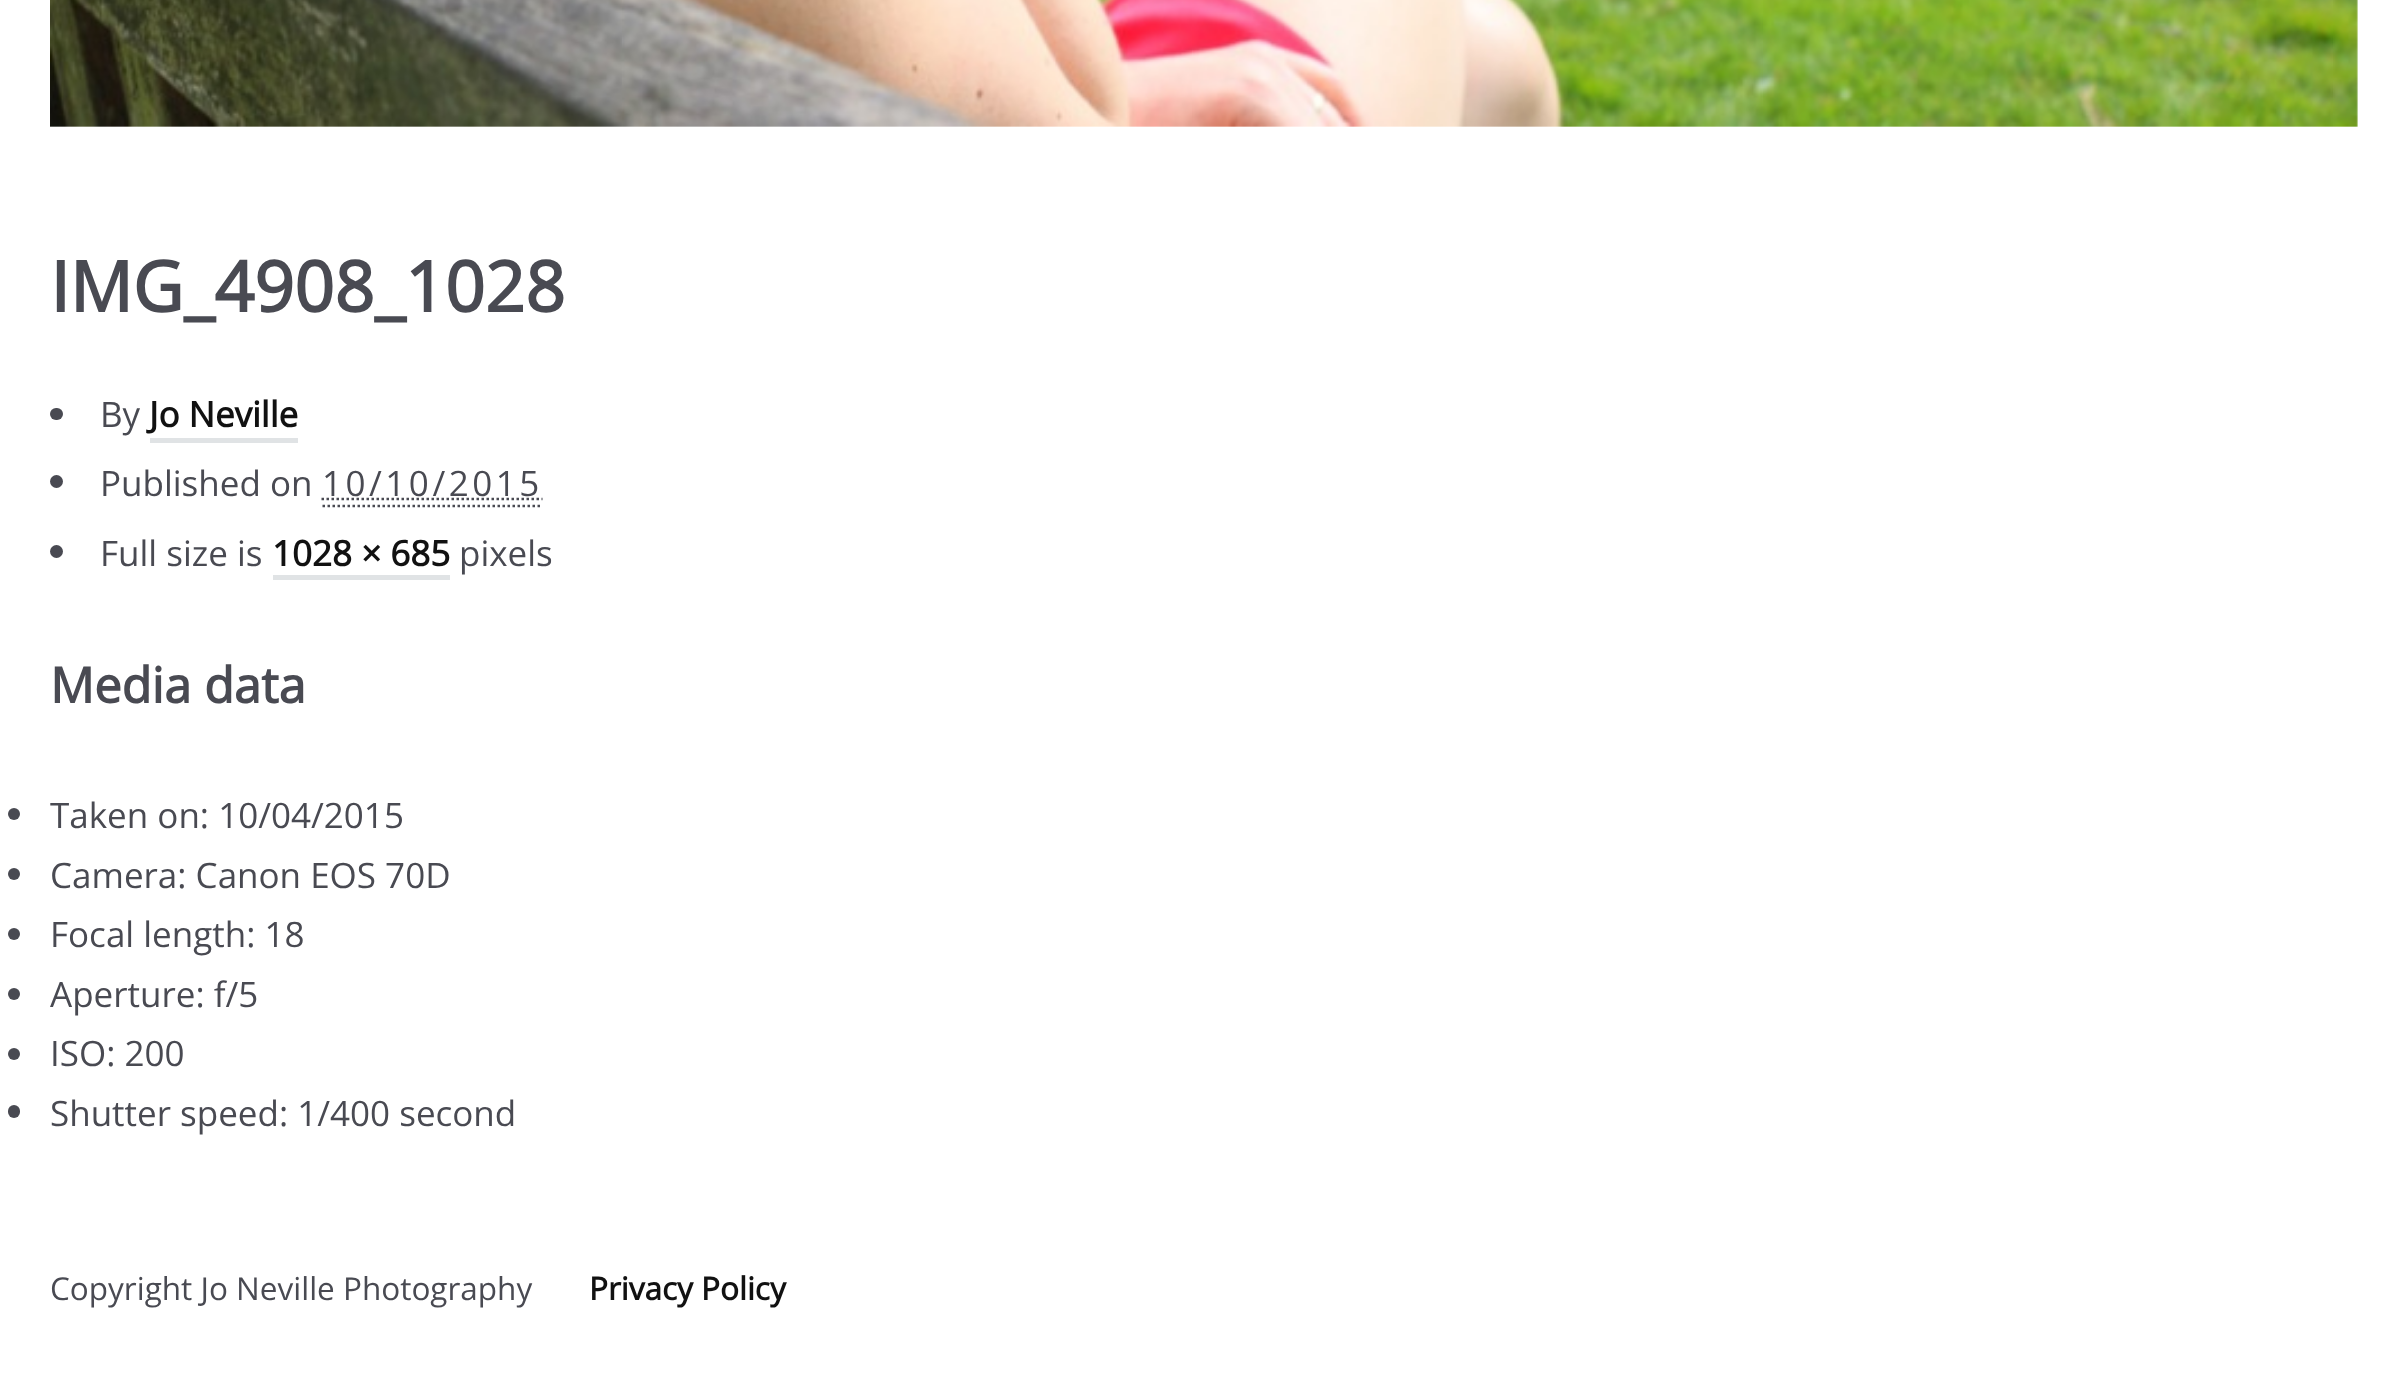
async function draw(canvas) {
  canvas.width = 2406
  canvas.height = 1376
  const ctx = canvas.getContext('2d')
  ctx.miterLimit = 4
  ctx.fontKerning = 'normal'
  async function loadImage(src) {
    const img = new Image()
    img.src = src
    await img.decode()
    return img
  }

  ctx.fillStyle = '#fff'
  ctx.fillRect(0, 0, 2406, 1376)
  ctx.drawImage(await loadImage('image0.png'), 50, 0, 2308, 127)
  ctx.font = 'bold 70px Open Sans'
  ctx.fillStyle = '#494a52'
  ctx.fillText('IMG_4908_1028', 50, 312)
  ctx.beginPath()
  ctx.roundRect(50, 408, 13, 12, 6)
  ctx.fill()
  ctx.font = '35px Open Sans'
  ctx.fillText('By', 100, 427)
  ctx.font = 'bold 35px Open Sans'
  ctx.fillStyle = '#111'
  ctx.fillText('Jo Neville', 149, 427)
  ctx.fillStyle = '#e0e3e5'
  ctx.fillRect(150, 438, 148, 5)
  ctx.fillStyle = '#494a52'
  ctx.beginPath()
  ctx.arc(56.5, 481.5, 6.5, 0, 2 * Math.PI)
  ctx.fill()
  ctx.font = '35px Open Sans'
  ctx.fillText('Published on', 100, 496)
  ctx.letterSpacing = '3.5px'
  ctx.fillText('10/10/2015', 322, 496)
  ctx.beginPath()
  ctx.moveTo(322.5, 506)
  ctx.lineTo(542.5, 506)
  ctx.strokeStyle = '#494a52'
  ctx.lineWidth = 2.5
  ctx.setLineDash([2.5, 2.5])
  ctx.stroke()
  ctx.beginPath()
  ctx.moveTo(321.5, 499)
  ctx.lineTo(542.5, 499)
  ctx.stroke()
  ctx.beginPath()
  ctx.arc(56.5, 551.5, 6.5, 0, 2 * Math.PI)
  ctx.fill()
  ctx.letterSpacing = '0px'
  ctx.fillText('Full size is', 100, 566)
  ctx.font = 'bold 35px Open Sans'
  ctx.fillStyle = '#111'
  ctx.fillText('1028 × 685', 272, 566)
  ctx.fillStyle = '#e0e3e5'
  ctx.fillRect(273, 575, 177, 5)
  ctx.font = '35px Open Sans'
  ctx.fillStyle = '#494a52'
  ctx.fillText('pixels', 459, 566)
  ctx.font = 'bold 49px Open Sans'
  ctx.fillText('Media data', 50, 703)
  ctx.beginPath()
  ctx.arc(14, 814, 6, 0, 2 * Math.PI)
  ctx.fill()
  ctx.font = '35px Open Sans'
  ctx.fillText('Taken on: 10/04/2015', 50, 828)
  ctx.beginPath()
  ctx.arc(14, 874, 6, 0, 2 * Math.PI)
  ctx.fill()
  ctx.fillText('Camera: Canon EOS 70D', 50, 888)
  ctx.beginPath()
  ctx.arc(14, 934, 6, 0, 2 * Math.PI)
  ctx.fill()
  ctx.fillText('Focal length: 18', 50, 947)
  ctx.beginPath()
  ctx.arc(14, 994, 6, 0, 2 * Math.PI)
  ctx.fill()
  ctx.fillText('Aperture: f/5', 50, 1007)
  ctx.beginPath()
  ctx.arc(14, 1054, 6, 0, 2 * Math.PI)
  ctx.fill()
  ctx.fillText('ISO: 200', 50, 1066)
  ctx.beginPath()
  ctx.roundRect(8, 1105, 12, 13, 6)
  ctx.fill()
  ctx.fillText('Shutter speed: 1/400 second', 50, 1126)
  ctx.font = '31.5px Open Sans'
  ctx.fillText('Copyright Jo Neville Photography', 50, 1300)
  ctx.font = 'bold 31.5px Open Sans'
  ctx.fillStyle = '#111'
  ctx.fillText('Privacy Policy', 589, 1300)
}

draw(document.querySelector('canvas'))
